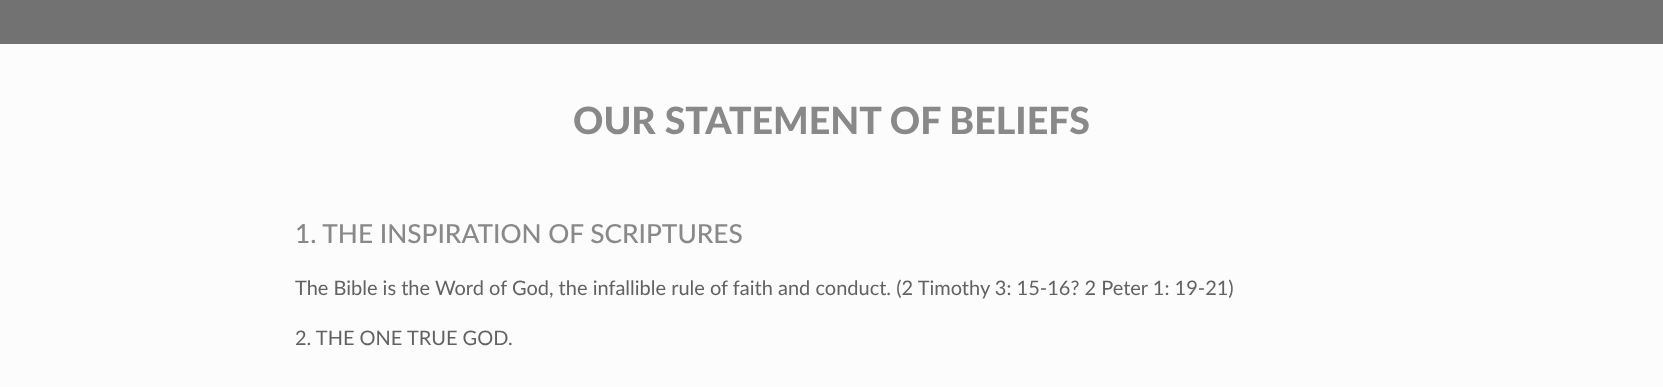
async function draw(canvas) {
  canvas.width = 1663
  canvas.height = 387
  const ctx = canvas.getContext('2d')
  ctx.miterLimit = 4
  ctx.fontKerning = 'normal'

  ctx.fillStyle = '#fcfcfc'
  ctx.fillRect(0, 0, 1663, 387)
  ctx.fillStyle = '#727272'
  ctx.fillRect(0, 0, 1663, 44)
  ctx.font = '900 37.5px Lato'
  ctx.fillStyle = '#898989'
  ctx.fillText('OUR STATEMENT OF BELIEFS', 573, 134)
  ctx.font = '500 26.25px Lato'
  ctx.fillText('1. THE INSPIRATION OF SCRIPTURES', 295, 243)
  ctx.font = '20px Lato'
  ctx.fillStyle = '#626262'
  ctx.fillText('The Bible is the Word of God, the infallible rule of faith and conduct. (2 Timothy 3: 15-16? 2 Peter 1: 19-21)', 295, 295)
  ctx.fillText('2. THE ONE TRUE GOD.', 295, 345)
}

draw(document.querySelector('canvas'))
